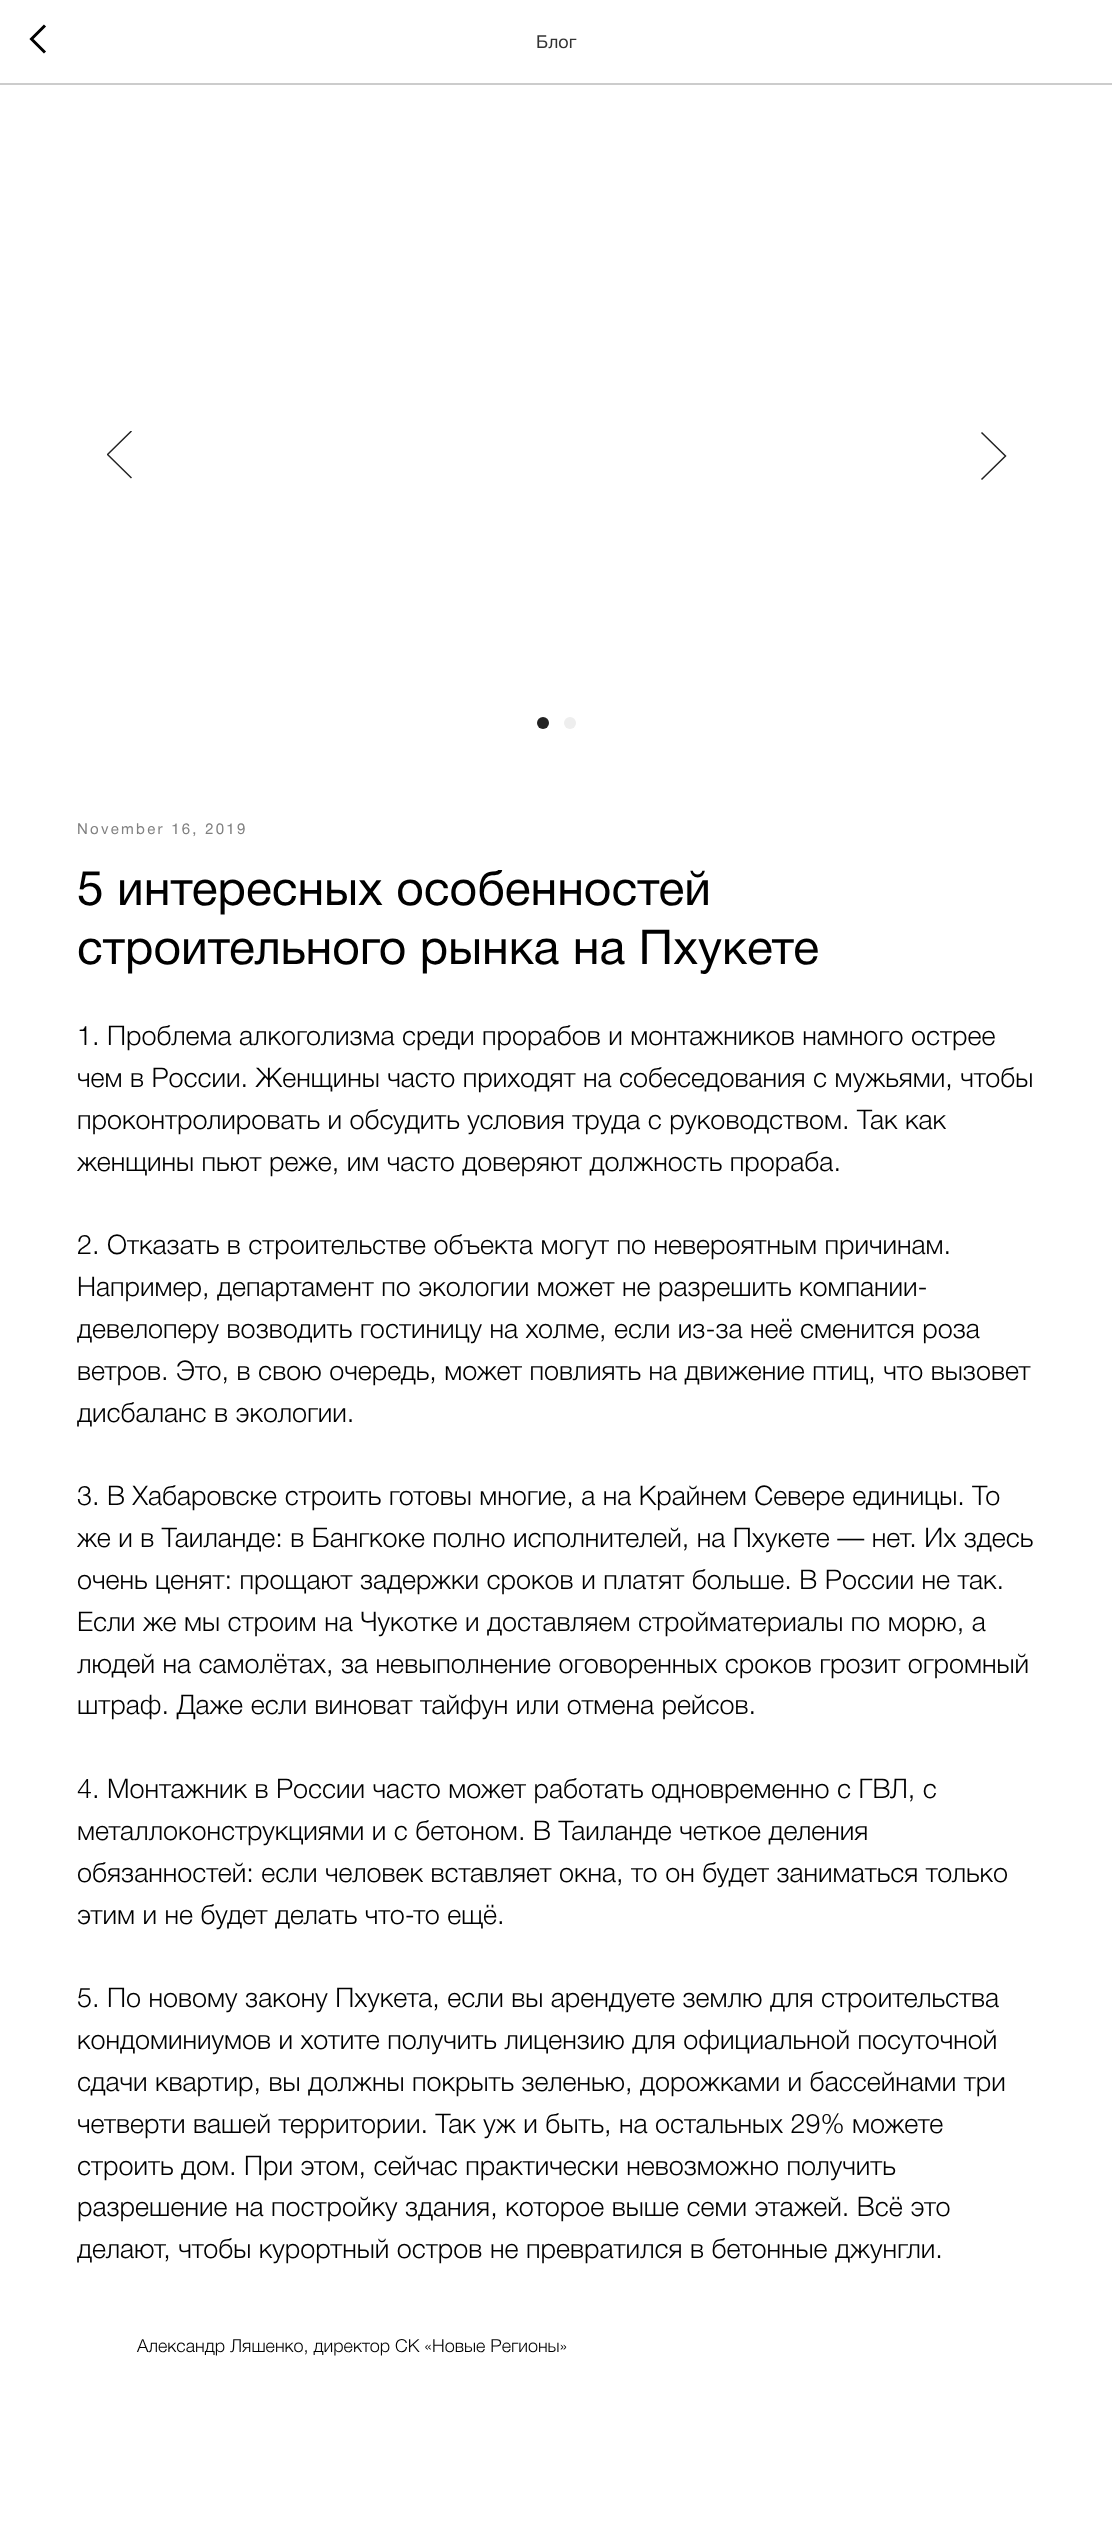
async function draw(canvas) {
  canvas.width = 1112
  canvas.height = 2523
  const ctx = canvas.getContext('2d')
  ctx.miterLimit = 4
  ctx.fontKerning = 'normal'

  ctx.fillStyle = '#fff'
  ctx.fillRect(0, 0, 1112, 2523)
  ctx.fillStyle = '#ccc'
  ctx.fillRect(0, 83, 1112, 2)
  ctx.beginPath()
  ctx.moveTo(45, 52.5)
  ctx.lineTo(31.5, 39)
  ctx.lineTo(45, 25.5)
  ctx.strokeStyle = '#000'
  ctx.lineWidth = 3
  ctx.stroke()
  ctx.font = '18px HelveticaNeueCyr'
  ctx.fillStyle = '#333'
  ctx.fillText('Блог', 536, 48)
  ctx.save()
  ctx.beginPath()
  ctx.rect(107, 431, 25, 49)
  ctx.clip()
  ctx.beginPath()
  ctx.moveTo(131.5, 478)
  ctx.lineTo(107.5, 454.5)
  ctx.lineTo(131.5, 431)
  ctx.strokeStyle = '#222'
  ctx.lineWidth = 1.5
  ctx.stroke()
  ctx.restore()
  ctx.beginPath()
  ctx.moveTo(981.5, 432.5)
  ctx.lineTo(1005.5, 456)
  ctx.lineTo(981.5, 479.5)
  ctx.strokeStyle = '#222'
  ctx.lineWidth = 1.5
  ctx.stroke()
  ctx.fillStyle = '#222'
  ctx.beginPath()
  ctx.arc(543, 723, 6, 0, 2 * Math.PI)
  ctx.fill()
  ctx.fillStyle = '#eee'
  ctx.beginPath()
  ctx.arc(570, 723, 6, 0, 2 * Math.PI)
  ctx.fill()
  ctx.letterSpacing = '2.25px'
  ctx.font = '15px HelveticaNeueCyr'
  ctx.fillStyle = '#808080'
  ctx.fillText('November 16, 2019', 77, 834)
  ctx.letterSpacing = '0px'
  ctx.font = '48px HelveticaNeueCyr'
  ctx.fillStyle = '#000'
  ctx.fillText('5 интересных особенностей', 77, 905)
  ctx.fillText('строительного рынка на Пхукете', 77, 964)
  ctx.font = '300 27px HelveticaNeueCyr'
  ctx.fillText('1. Проблема алкоголизма среди прорабов и монтажников намного острее', 77, 1045)
  ctx.fillText('чем в России. Женщины часто приходят на собеседования с мужьями, чтобы', 77, 1087)
  ctx.fillText('проконтролировать и обсудить условия труда с руководством. Так как', 77, 1129)
  ctx.fillText('женщины пьют реже, им часто доверяют должность прораба.', 77, 1171)
  ctx.fillText('2. Отказать в строительстве объекта могут по невероятным причинам.', 77, 1254)
  ctx.fillText('Например, департамент по экологии может не разрешить компании-', 77, 1296)
  ctx.fillText('девелоперу возводить гостиницу на холме, если из-за неё сменится роза', 77, 1338)
  ctx.fillText('ветров. Это, в свою очередь, может повлиять на движение птиц, что вызовет', 77, 1380)
  ctx.fillText('дисбаланс в экологии.', 77, 1422)
  ctx.fillText('3. В Хабаровске строить готовы многие, а на Крайнем Севере единицы. То', 77, 1505)
  ctx.fillText('же и в Таиланде: в Бангкоке полно исполнителей, на Пхукете — нет. Их здесь', 77, 1547)
  ctx.fillText('очень ценят: прощают задержки сроков и платят больше. В России не так.', 77, 1589)
  ctx.fillText('Если же мы строим на Чукотке и доставляем стройматериалы по морю, а', 77, 1631)
  ctx.fillText('людей на самолётах, за невыполнение оговоренных сроков грозит огромный', 77, 1673)
  ctx.fillText('штраф. Даже если виноват тайфун или отмена рейсов.', 77, 1714)
  ctx.fillText('4. Монтажник в России часто может работать одновременно с ГВЛ, с', 77, 1798)
  ctx.fillText('металлоконструкциями и с бетоном. В Таиланде четкое деления', 77, 1840)
  ctx.fillText('обязанностей: если человек вставляет окна, то он будет заниматься только', 77, 1882)
  ctx.fillText('этим и не будет делать что-то ещё.', 77, 1924)
  ctx.fillText('5. По новому закону Пхукета, если вы арендуете землю для строительства', 77, 2007)
  ctx.fillText('кондоминиумов и хотите получить лицензию для официальной посуточной', 77, 2049)
  ctx.fillText('сдачи квартир, вы должны покрыть зеленью, дорожками и бассейнами три', 77, 2091)
  ctx.fillText('четверти вашей территории. Так уж и быть, на остальных 29% можете', 77, 2133)
  ctx.fillText('строить дом. При этом, сейчас практически невозможно получить', 77, 2175)
  ctx.fillText('разрешение на постройку здания, которое выше семи этажей. Всё это', 77, 2216)
  ctx.fillText('делают, чтобы курортный остров не превратился в бетонные джунгли.', 77, 2258)
  ctx.font = '300 18px HelveticaNeueCyr'
  ctx.fillText('Александр Ляшенко, директор СК «Новые Регионы»', 137, 2352)
}

draw(document.querySelector('canvas'))
